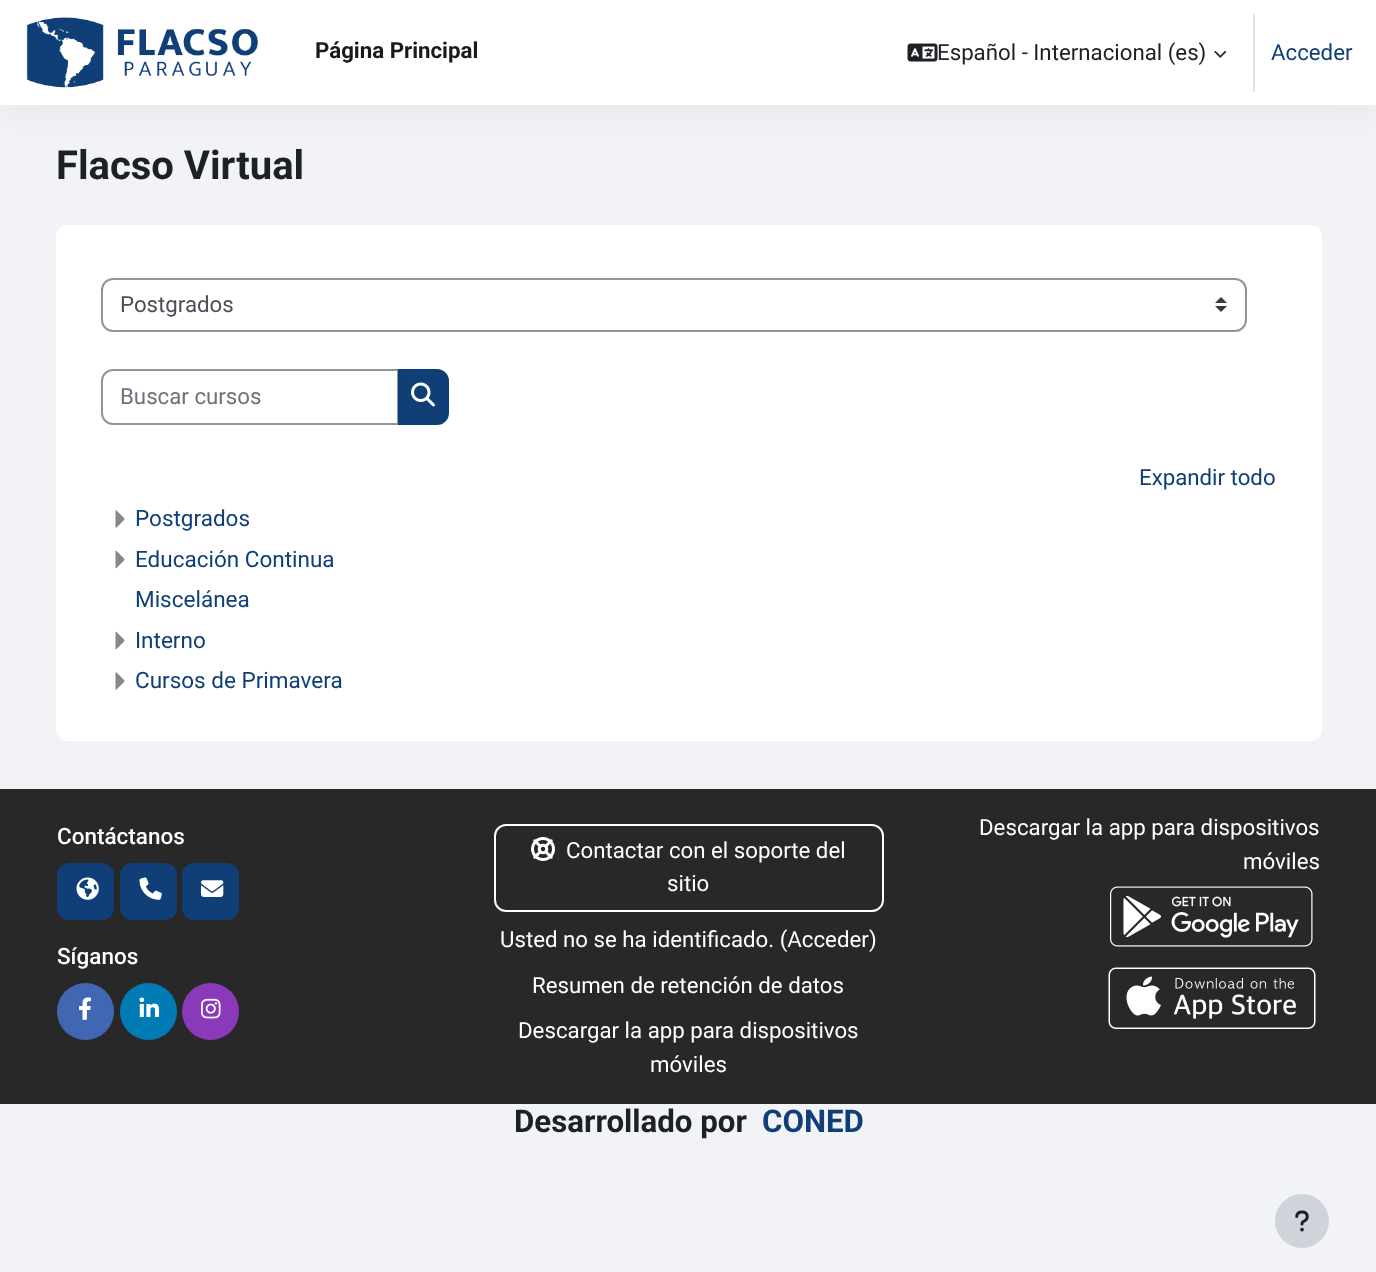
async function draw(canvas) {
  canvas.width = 1376
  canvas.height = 1272
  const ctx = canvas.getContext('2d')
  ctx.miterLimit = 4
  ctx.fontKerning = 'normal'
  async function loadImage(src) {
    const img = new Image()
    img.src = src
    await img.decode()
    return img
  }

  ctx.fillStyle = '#f2f3f7'
  ctx.fillRect(0, 0, 1376, 1272)
  ctx.fillStyle = '#8c98a421'
  ctx.filter = 'blur(18px)'
  ctx.beginPath()
  ctx.rect(0, 9, 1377, 105)
  ctx.fill()
  ctx.filter = 'none'
  ctx.fillStyle = '#fff'
  ctx.fillRect(0, 0, 1376, 105)
  ctx.drawImage(await loadImage('image0.png'), 26, 17, 232, 71)
  ctx.font = 'bold 22.25px Roboto'
  ctx.fillStyle = '#1a1a1a'
  ctx.fillText('Página Principal', 315, 58)
  ctx.drawImage(await loadImage('image1.png'), 907, 43, 31, 19)
  ctx.font = '22.25px Roboto'
  ctx.fillStyle = '#1d2125'
  ctx.fillText('Español - Internacional (es)', 937, 60)
  ctx.drawImage(await loadImage('image2.png'), 1214, 51, 13, 7)
  ctx.fillStyle = '#dee2e6'
  ctx.fillRect(1253, 14, 2, 78)
  ctx.fillStyle = '#0f3f76'
  ctx.fillText('Acceder', 1271, 60)
  ctx.font = 'bold 40px Roboto'
  ctx.fillStyle = '#1d2125'
  ctx.fillText('Flacso Virtual', 56, 179)
  ctx.fillStyle = '#fff'
  ctx.beginPath()
  ctx.roundRect(56, 225, 1266, 516, 12)
  ctx.fill()
  ctx.drawImage(await loadImage('image3.png'), 1215, 297, 12, 15)
  ctx.beginPath()
  ctx.roundRect(102, 279, 1144, 52, 11)
  ctx.strokeStyle = '#8f959e'
  ctx.lineWidth = 2
  ctx.stroke()
  ctx.font = '22.25px Roboto'
  ctx.fillStyle = '#495057'
  ctx.fillText('Postgrados', 120, 312)
  ctx.beginPath()
  ctx.roundRect(102, 370, 296, 54, [11, 0, 0, 11])
  ctx.stroke()
  ctx.fillStyle = '#6a737b'
  ctx.fillText('Buscar cursos', 120, 404)
  ctx.fillStyle = '#0f3f76'
  ctx.beginPath()
  ctx.roundRect(399, 370, 49, 54, [0, 11, 11, 0])
  ctx.fill()
  ctx.strokeStyle = '#0f3f76'
  ctx.stroke()
  ctx.drawImage(await loadImage('image4.png'), 411, 382, 24, 25)
  ctx.fillText('Expandir todo', 1139, 485)
  ctx.drawImage(await loadImage('image5.png'), 115, 510, 10, 18)
  ctx.font = '22.5px Roboto'
  ctx.fillText('Postgrados', 135, 526)
  ctx.drawImage(await loadImage('image6.png'), 115, 550, 10, 19)
  ctx.fillText('Educación Continua', 135, 567)
  ctx.fillText('Miscelánea', 135, 607)
  ctx.drawImage(await loadImage('image6.png'), 115, 631, 10, 19)
  ctx.fillText('Interno', 135, 648)
  ctx.drawImage(await loadImage('image5.png'), 115, 672, 10, 18)
  ctx.fillText('Cursos de Primavera', 135, 688)
  ctx.fillStyle = '#282829'
  ctx.fillRect(0, 789, 1376, 315)
  ctx.font = '500 22.5px Roboto'
  ctx.fillStyle = '#fff'
  ctx.fillText('Contáctanos', 57, 844)
  ctx.fillStyle = '#0f3f76'
  ctx.beginPath()
  ctx.roundRect(57, 863, 57, 57, 12)
  ctx.fill()
  ctx.drawImage(await loadImage('image7.png'), 76, 877, 23, 23)
  ctx.beginPath()
  ctx.roundRect(120, 863, 57, 57, 12)
  ctx.fill()
  ctx.drawImage(await loadImage('image8.png'), 139, 877, 23, 23)
  ctx.beginPath()
  ctx.roundRect(182, 863, 57, 57, 12)
  ctx.fill()
  ctx.drawImage(await loadImage('image9.png'), 201, 880, 23, 17)
  ctx.fillStyle = '#fff'
  ctx.fillText('Síganos', 57, 964)
  ctx.fillStyle = '#4167b2'
  ctx.beginPath()
  ctx.arc(85.5, 1011.5, 28.5, 0, 2 * Math.PI)
  ctx.fill()
  ctx.drawImage(await loadImage('image10.png'), 79, 997, 12, 23)
  ctx.fillStyle = '#007bb5'
  ctx.beginPath()
  ctx.arc(148.5, 1011.5, 28.5, 0, 2 * Math.PI)
  ctx.fill()
  ctx.drawImage(await loadImage('image11.png'), 139, 997, 20, 20)
  ctx.fillStyle = '#8a3ab9'
  ctx.beginPath()
  ctx.arc(210.5, 1011.5, 28.5, 0, 2 * Math.PI)
  ctx.fill()
  ctx.drawImage(await loadImage('image12.png'), 201, 998, 20, 21)
  ctx.beginPath()
  ctx.roundRect(495, 825, 388, 86, 11)
  ctx.strokeStyle = '#fff'
  ctx.stroke()
  ctx.drawImage(await loadImage('image13.png'), 531, 837, 24, 24)
  ctx.font = '22.25px Roboto'
  ctx.fillStyle = '#fff'
  ctx.fillText('Contactar con el soporte del', 566, 858)
  ctx.fillText('sitio', 667, 891)
  ctx.fillText('Usted no se ha identificado. (Acceder', 500, 947)
  ctx.fillText(')', 869, 947)
  ctx.fillText('Resumen de retención de datos', 532, 993)
  ctx.fillText('Descargar la app para dispositivos', 518, 1038)
  ctx.fillText('móviles', 650, 1072)
  ctx.fillText('Descargar la app para dispositivos', 979, 835)
  ctx.fillText('móviles', 1243, 869)
  ctx.drawImage(await loadImage('image14.png'), 1110, 886, 203, 61)
  ctx.drawImage(await loadImage('image15.png'), 1108, 967, 208, 62)
  ctx.fillStyle = '#ced4da'
  ctx.beginPath()
  ctx.arc(1302, 1221, 27, 0, 2 * Math.PI)
  ctx.fill()
  ctx.drawImage(await loadImage('image16.png'), 1295, 1210, 14, 22)
  ctx.font = 'bold 31.25px Roboto'
  ctx.fillStyle = '#1d2125'
  ctx.fillText('Desarrollado por', 514, 1132)
  ctx.fillStyle = '#0f3f76'
  ctx.fillText('CONED', 762, 1132)
}

draw(document.querySelector('canvas'))
